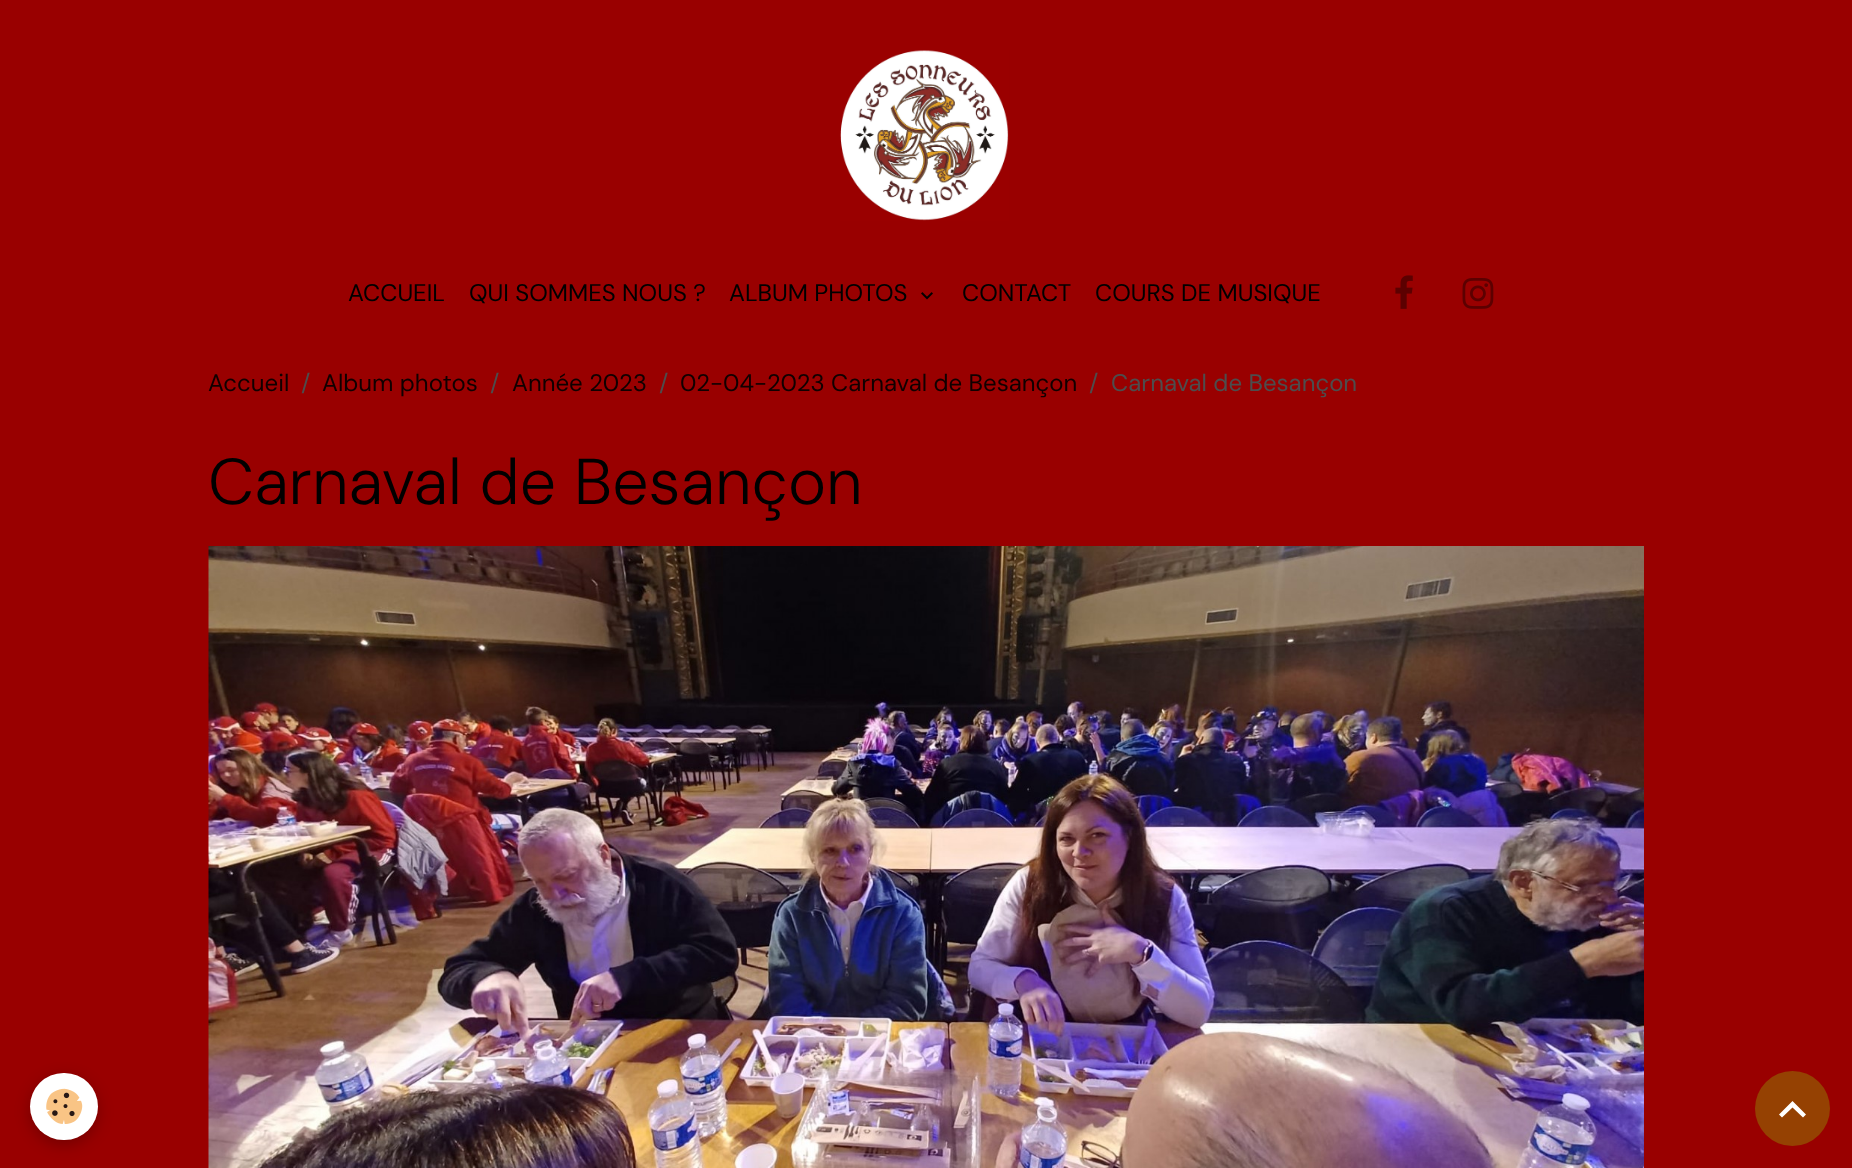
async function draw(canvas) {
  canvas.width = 1852
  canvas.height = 1168
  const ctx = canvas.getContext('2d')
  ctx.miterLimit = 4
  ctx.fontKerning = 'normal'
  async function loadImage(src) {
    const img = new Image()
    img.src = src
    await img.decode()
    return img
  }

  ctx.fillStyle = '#900'
  ctx.fillRect(0, 0, 1852, 1168)
  ctx.drawImage(await loadImage('image0.png'), 840, 50, 169, 171)
  ctx.font = '24px DM Sans'
  ctx.fillStyle = '#000'
  ctx.fillText('ACCUEIL', 348, 301)
  ctx.fillText('QUI SOMMES NOUS ?', 469, 301)
  ctx.fillText('ALBUM PHOTOS', 729, 301)
  ctx.drawImage(await loadImage('image1.png'), 921, 292, 12, 8)
  ctx.fillText('CONTACT', 962, 301)
  ctx.fillText('COURS DE MUSIQUE', 1095, 301)
  ctx.drawImage(await loadImage('image2.png'), 1395, 275, 18, 34)
  ctx.drawImage(await loadImage('image3.png'), 1462, 278, 32, 31)
  ctx.fillStyle = '#100000'
  ctx.fillText('Accueil', 208, 391)
  ctx.fillStyle = '#4d4d4d'
  ctx.fillText('/', 301, 391)
  ctx.fillStyle = '#100000'
  ctx.fillText('Album photos', 322, 391)
  ctx.fillStyle = '#4d4d4d'
  ctx.fillText('/', 490, 391)
  ctx.fillStyle = '#100000'
  ctx.fillText('Année 2023', 512, 391)
  ctx.fillStyle = '#4d4d4d'
  ctx.fillText('/', 659, 391)
  ctx.fillStyle = '#100000'
  ctx.fillText('02-04-2023 Carnaval de Besançon', 680, 391)
  ctx.fillStyle = '#4d4d4d'
  ctx.fillText('/', 1089, 391)
  ctx.fillText('Carnaval de Besançon', 1111, 391)
  ctx.font = '300 64.75px DM Sans'
  ctx.fillStyle = '#000'
  ctx.fillText('Carnaval de Besançon', 208, 504)
  ctx.drawImage(await loadImage('image4.png'), 208, 546, 1436, 622)
  ctx.fillStyle = '#0000003d'
  ctx.filter = 'blur(7.5px)'
  ctx.beginPath()
  ctx.roundRect(30, 1077, 68, 68, 34)
  ctx.fill()
  ctx.filter = 'none'
  ctx.fillStyle = '#fff'
  ctx.beginPath()
  ctx.roundRect(30, 1073, 68, 67, 33.5)
  ctx.fill()
  ctx.drawImage(await loadImage('image5.png'), 46, 1088, 37, 36)
  ctx.fillStyle = '#954102'
  ctx.beginPath()
  ctx.arc(1792.5, 1108.5, 37.5, 0, 2 * Math.PI)
  ctx.fill()
  ctx.fillStyle = '#fff'
  ctx.beginPath()
  ctx.moveTo(1792.5, 1101)
  ctx.lineTo(1806, 1114.5)
  ctx.lineTo(1803, 1117.5)
  ctx.lineTo(1792.5, 1107.5)
  ctx.lineTo(1782, 1117.5)
  ctx.lineTo(1779, 1114.5)
  ctx.closePath()
  ctx.fill()
}

draw(document.querySelector('canvas'))
